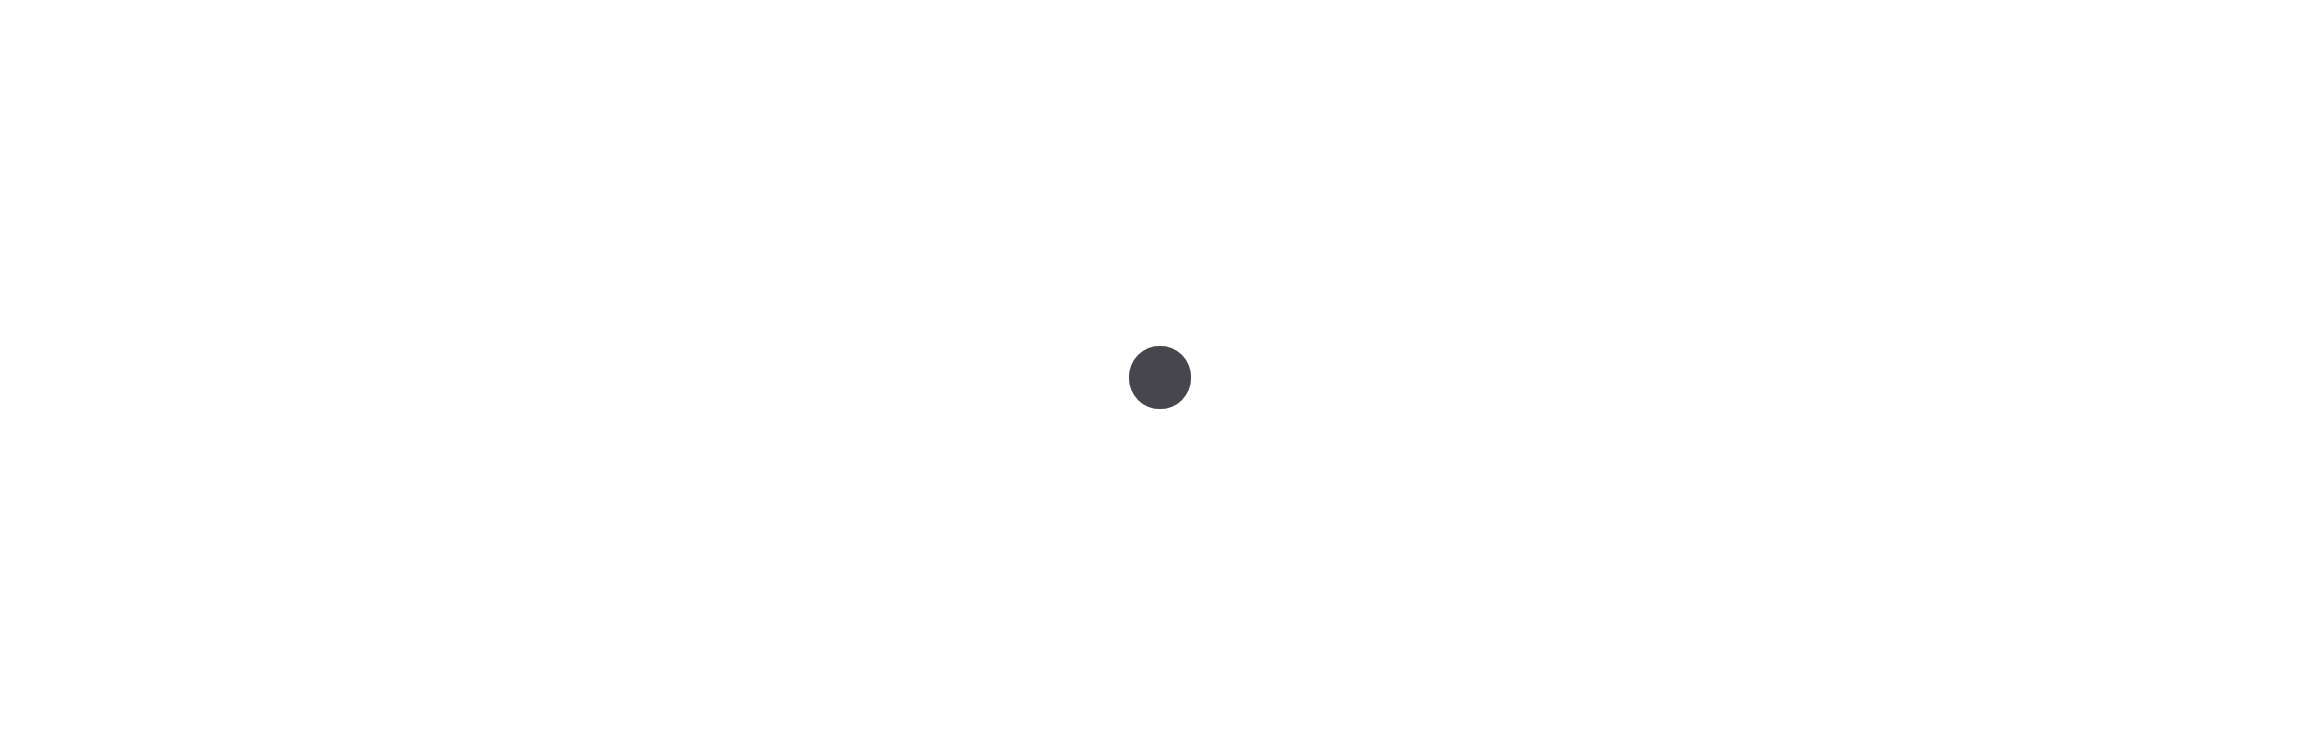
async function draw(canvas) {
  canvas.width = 2318
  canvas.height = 755
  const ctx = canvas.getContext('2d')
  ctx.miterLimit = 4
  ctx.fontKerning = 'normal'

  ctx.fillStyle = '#fff'
  ctx.fillRect(0, 0, 2318, 755)
  ctx.fillStyle = '#65656a'
  ctx.beginPath()
  ctx.roundRect(1129, 346, 62, 63, 31)
  ctx.fill()
  ctx.fillStyle = '#3f3e45cc'
  ctx.beginPath()
  ctx.roundRect(1129, 346, 62, 63, 31)
  ctx.fill()
}

draw(document.querySelector('canvas'))
